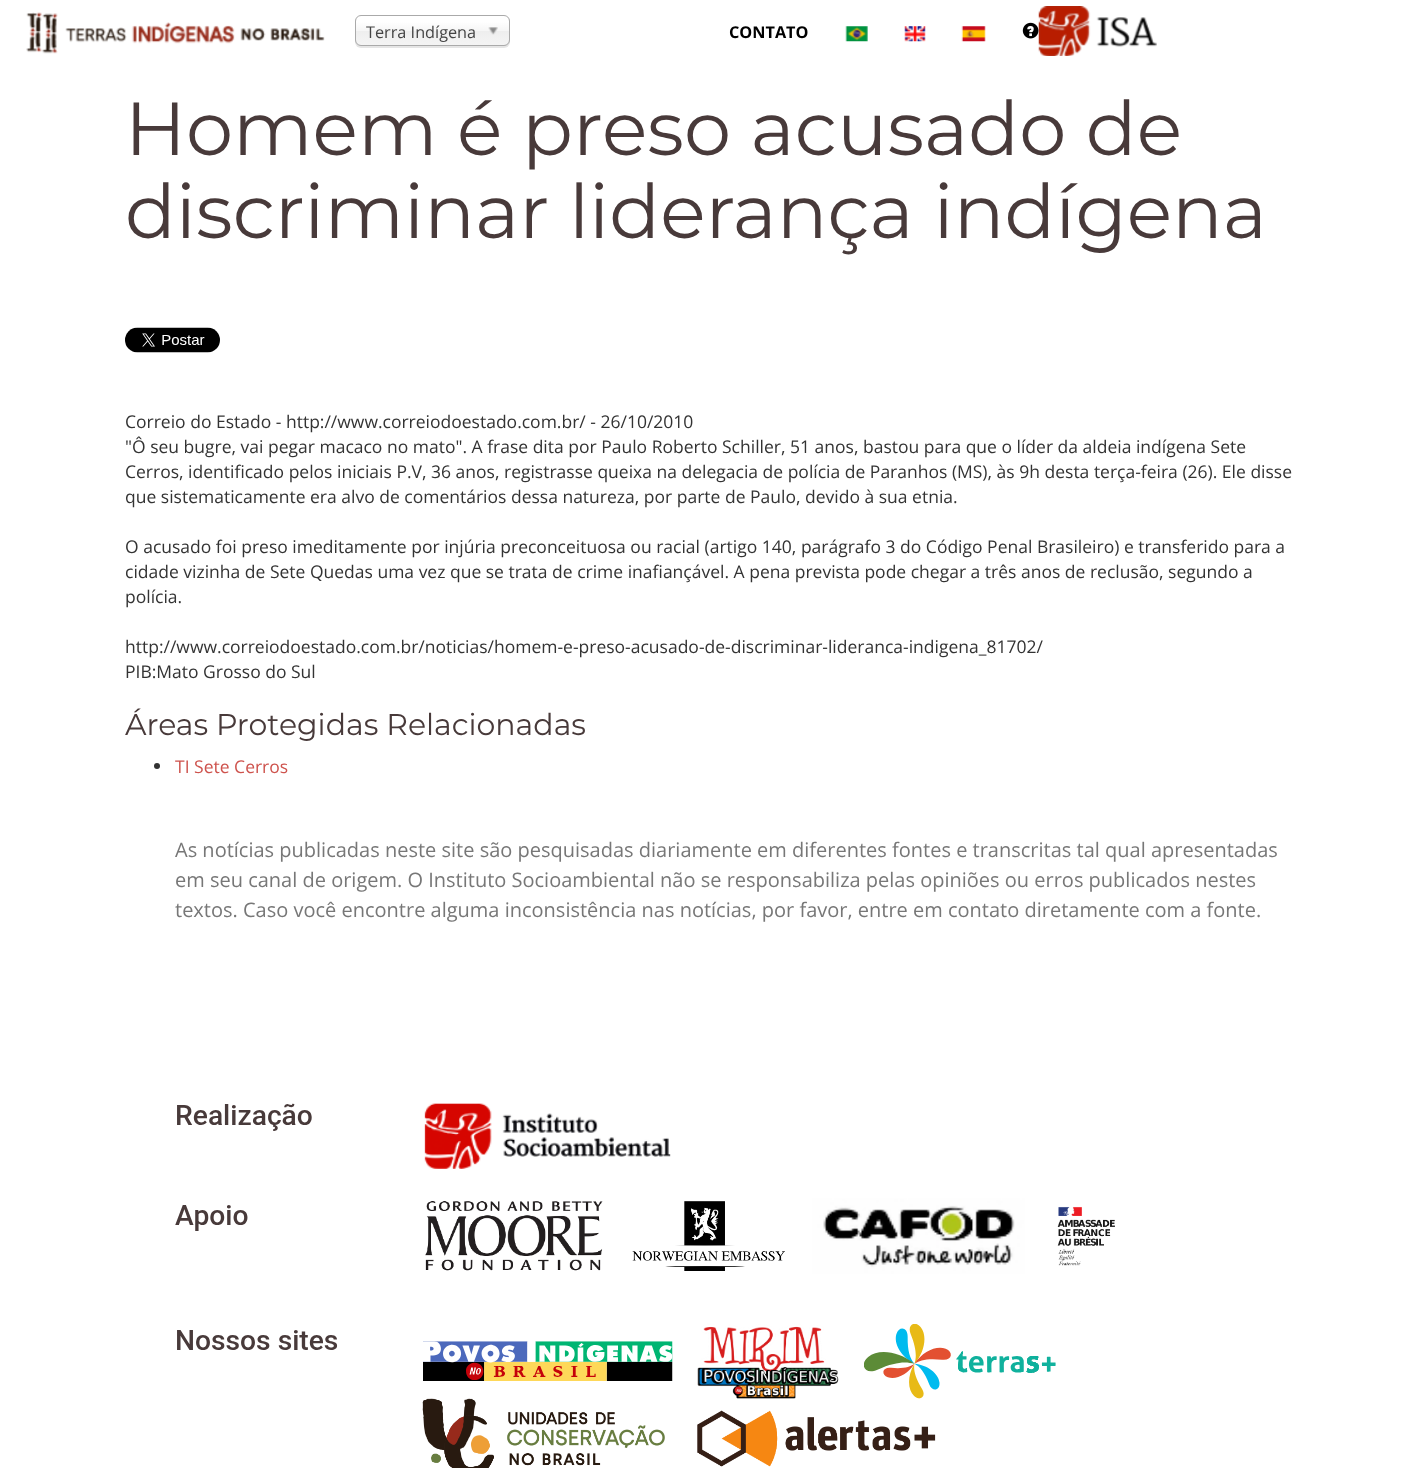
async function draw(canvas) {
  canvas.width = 1425;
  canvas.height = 1468;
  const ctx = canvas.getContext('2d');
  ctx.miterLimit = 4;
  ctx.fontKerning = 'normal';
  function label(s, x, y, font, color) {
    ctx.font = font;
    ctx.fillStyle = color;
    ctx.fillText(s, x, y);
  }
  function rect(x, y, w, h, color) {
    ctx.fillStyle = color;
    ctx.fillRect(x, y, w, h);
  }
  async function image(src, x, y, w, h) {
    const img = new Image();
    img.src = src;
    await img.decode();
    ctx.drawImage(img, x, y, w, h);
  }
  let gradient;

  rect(0, 0, 1425, 1468, '#fff');
  await image('assets/img1.png', 26, 12, 299, 42);
  ctx.fillStyle = '#0000001a';
  ctx.filter = 'blur(0.5px)';
  ctx.beginPath();
  ctx.roundRect(355, 16, 155, 32, 6);
  ctx.fill();
  ctx.filter = 'none';
  gradient = ctx.createLinearGradient(433, 16, 433, 45);
  gradient.addColorStop(0.2, '#fff');
  gradient.addColorStop(0.5, '#f6f6f6');
  gradient.addColorStop(0.52, '#eee');
  gradient.addColorStop(1, '#f4f4f4');
  ctx.fillStyle = gradient;
  ctx.beginPath();
  ctx.roundRect(356, 16, 153, 29, 5);
  ctx.fill();
  ctx.beginPath();
  ctx.roundRect(355.5, 15.5, 154, 30, 5.5);
  ctx.strokeStyle = '#aaa';
  ctx.stroke();
  label('Terra Indígena', 366, 38, '16.25px Open Sans', '#444');
  await image('assets/img2.png', 488, 27, 10, 8);
  label('CONTATO', 729, 38, 'bold 16.25px Open Sans', '#000');
  await image('assets/img3.png', 845, 26, 23, 16);
  await image('assets/img4.png', 904, 26, 22, 16);
  await image('assets/img5.png', 961, 26, 25, 16);
  await image('assets/img7.png', 1038, 6, 119, 50);
  await image('assets/img6.png', 1022, 22, 17, 17);
  label('Homem é preso acusado de', 125, 155, '100 75px Montserrat', '#483a3a');
  label('discriminar liderança indígena', 125, 238, '100 75px Montserrat', '#483a3a');
  await image('assets/img8.png', 125, 327, 95, 26);
  label('Correio do Estado - http://www.correiodoestado.com.br/ - 26/10/2010', 125, 428, '17.5px Open Sans', '#333');
  label('"Ô seu bugre, vai pegar macaco no mato". A frase dita por Paulo Roberto Schiller, 51 anos, bastou para que o líder da aldeia indígena Sete', 125, 453, '17.5px Open Sans', '#333');
  label('Cerros, identificado pelos iniciais P.V, 36 anos, registrasse queixa na delegacia de polícia de Paranhos (MS), às 9h desta terça-feira (26). Ele disse', 125, 478, '17.5px Open Sans', '#333');
  label('que sistematicamente era alvo de comentários dessa natureza, por parte de Paulo, devido à sua etnia.', 125, 503, '17.5px Open Sans', '#333');
  label('O acusado foi preso imeditamente por injúria preconceituosa ou racial (artigo 140, parágrafo 3 do Código Penal Brasileiro) e transferido para a', 125, 553, '17.5px Open Sans', '#333');
  label('cidade vizinha de Sete Quedas uma vez que se trata de crime inafiançável. A pena prevista pode chegar a três anos de reclusão, segundo a', 125, 578, '17.5px Open Sans', '#333');
  label('polícia.', 125, 603, '17.5px Open Sans', '#333');
  label('http://www.correiodoestado.com.br/noticias/homem-e-preso-acusado-de-discriminar-lideranca-indigena_81702/', 125, 653, '17.5px Open Sans', '#333');
  label('PIB:Mato Grosso do Sul', 125, 678, '17.5px Open Sans', '#333');
  label('Áreas Protegidas Relacionadas', 125, 735, '100 30px Montserrat', '#483a3a');
  ctx.fillStyle = '#333';
  ctx.beginPath();
  ctx.arc(157, 766, 3, 0, 2 * Math.PI);
  ctx.fill();
  label('TI Sete Cerros', 175, 773, '17.5px Open Sans', '#ce534d');
  label('As notícias publicadas neste site são pesquisadas diariamente em diferentes fontes e transcritas tal qual apresentadas', 175, 857, '20px Open Sans', '#777');
  label('em seu canal de origem. O Instituto Socioambiental não se responsabiliza pelas opiniões ou erros publicados nestes', 175, 887, '20px Open Sans', '#777');
  label('textos. Caso você encontre alguma inconsistência nas notícias, por favor, entre em contato diretamente com a fonte.', 175, 917, '20px Open Sans', '#777');
  await image('assets/img9.png', 175, 1103, 940, 365);
}

draw(document.querySelector('canvas'));
